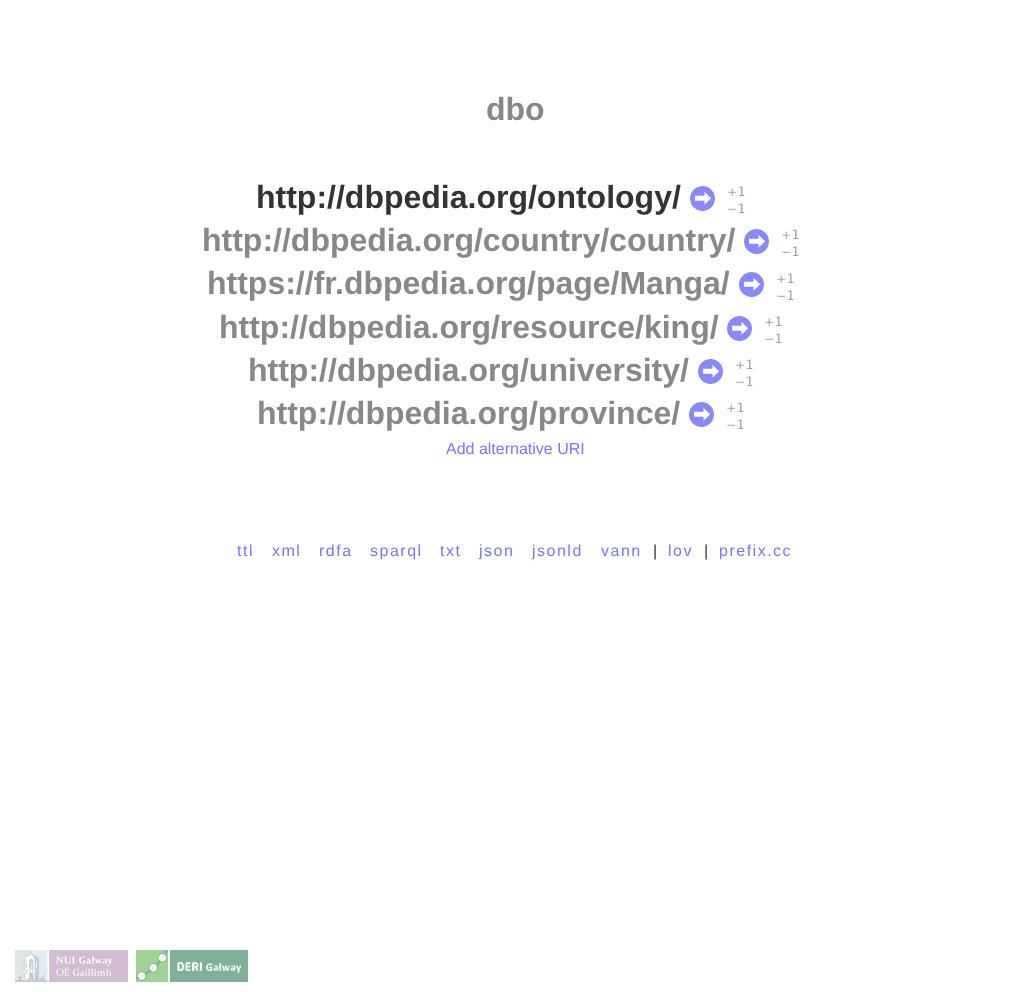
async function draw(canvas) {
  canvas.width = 1030;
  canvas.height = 992;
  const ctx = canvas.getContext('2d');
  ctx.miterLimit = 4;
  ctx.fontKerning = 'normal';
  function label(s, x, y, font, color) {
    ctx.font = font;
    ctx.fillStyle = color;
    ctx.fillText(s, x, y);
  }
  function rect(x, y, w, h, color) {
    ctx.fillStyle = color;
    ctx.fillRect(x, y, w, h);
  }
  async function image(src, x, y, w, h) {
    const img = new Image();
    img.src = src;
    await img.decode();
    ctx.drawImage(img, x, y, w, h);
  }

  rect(0, 0, 1030, 992, '#fff');
  label('dbo', 486, 120, 'bold 32px Liberation Sans', '#888');
  label('http://dbpedia.org/ontology/', 256, 208, 'bold 32px Liberation Sans', '#333');
  await image('assets/img1.png', 690, 186, 25, 25);
  await image('assets/img2.png', 728, 186, 17, 10);
  await image('assets/img3.png', 728, 203, 17, 10);
  label('http://dbpedia.org/country/country/', 202, 251, 'bold 32px Liberation Sans', '#888');
  await image('assets/img1.png', 744, 229, 25, 25);
  await image('assets/img2.png', 782, 229, 17, 10);
  await image('assets/img3.png', 782, 246, 17, 10);
  label('https://fr.dbpedia.org/page/Manga/', 207, 294, 'bold 32px Liberation Sans', '#888');
  await image('assets/img1.png', 739, 272, 25, 25);
  await image('assets/img2.png', 777, 273, 17, 10);
  await image('assets/img3.png', 777, 290, 17, 10);
  label('http://dbpedia.org/resource/king/', 219, 338, 'bold 32px Liberation Sans', '#888');
  await image('assets/img1.png', 727, 316, 25, 25);
  await image('assets/img2.png', 765, 316, 17, 10);
  await image('assets/img3.png', 765, 333, 17, 10);
  label('http://dbpedia.org/university/', 248, 381, 'bold 32px Liberation Sans', '#888');
  await image('assets/img1.png', 698, 359, 25, 25);
  await image('assets/img2.png', 736, 359, 17, 10);
  await image('assets/img3.png', 736, 376, 17, 10);
  label('http://dbpedia.org/province/', 257, 424, 'bold 32px Liberation Sans', '#888');
  await image('assets/img1.png', 689, 402, 25, 25);
  await image('assets/img2.png', 727, 402, 17, 10);
  await image('assets/img3.png', 727, 419, 17, 10);
  label('Add alternative URI', 446, 454, '16px Liberation Sans', '#77f');
  ctx.letterSpacing = '1.5px';
  label('ttl', 237, 556, '16px Liberation Sans', '#77f');
  label('xml', 272, 556, '16px Liberation Sans', '#77f');
  label('rdfa', 319, 556, '16px Liberation Sans', '#77f');
  label('sparql', 370, 556, '16px Liberation Sans', '#77f');
  label('txt', 440, 556, '16px Liberation Sans', '#77f');
  label('json', 479, 556, '16px Liberation Sans', '#77f');
  label('jsonld', 532, 556, '16px Liberation Sans', '#77f');
  label('vann', 601, 556, '16px Liberation Sans', '#77f');
  ctx.letterSpacing = '0px';
  label('|', 653, 556, '16px Liberation Sans', '#333');
  ctx.letterSpacing = '1.5px';
  label('lov', 668, 556, '16px Liberation Sans', '#77f');
  ctx.letterSpacing = '0px';
  label('|', 704, 556, '16px Liberation Sans', '#333');
  ctx.letterSpacing = '1.5px';
  label('prefix.cc', 719, 556, '16px Liberation Sans', '#77f');
  await image('assets/img4.png', 15, 950, 113, 32);
  await image('assets/img5.png', 136, 950, 112, 32);
}

draw(document.querySelector('canvas'));
